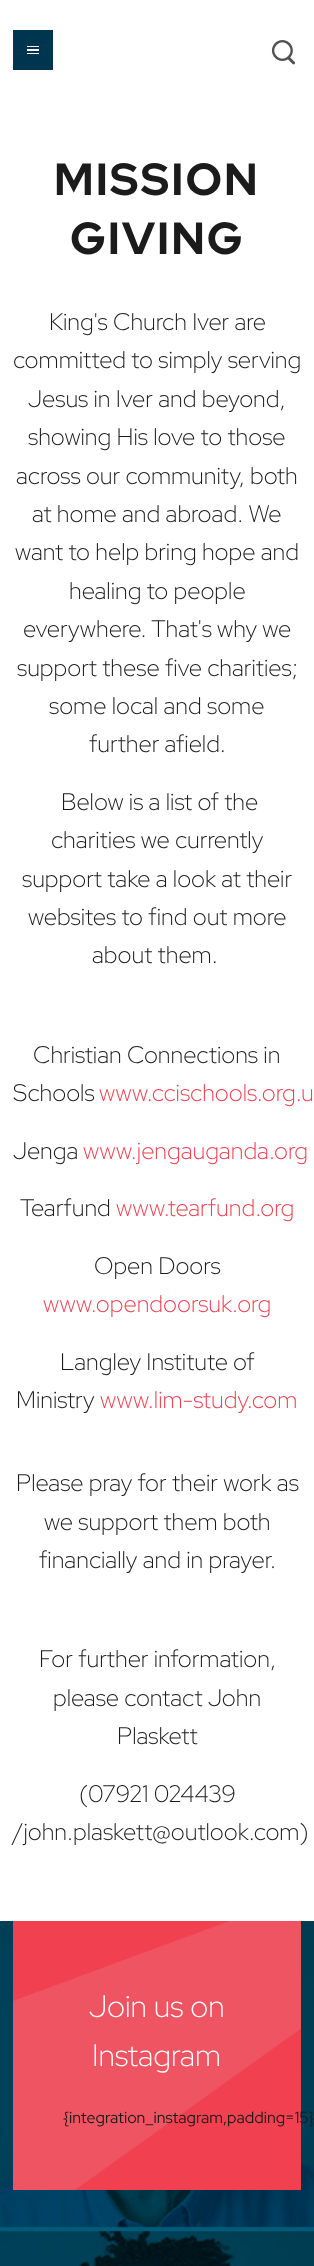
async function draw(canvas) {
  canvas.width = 314;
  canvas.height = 2266;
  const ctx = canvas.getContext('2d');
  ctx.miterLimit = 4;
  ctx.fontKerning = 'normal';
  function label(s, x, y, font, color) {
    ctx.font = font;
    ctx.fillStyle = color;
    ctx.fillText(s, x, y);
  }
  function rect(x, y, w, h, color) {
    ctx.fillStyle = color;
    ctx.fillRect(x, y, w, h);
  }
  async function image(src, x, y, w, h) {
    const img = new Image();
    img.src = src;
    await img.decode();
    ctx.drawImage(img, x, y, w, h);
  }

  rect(0, 0, 314, 2266, '#fff');
  rect(13, 30, 40, 40, '#00354f');
  rect(27, 46, 12, 1, '#fff');
  rect(27, 49, 12, 2, '#fff');
  rect(27, 53, 12, 1, '#fff');
  await image('assets/img1.png', 271, 40, 24, 25);
  ctx.letterSpacing = '2px';
  label('MISSION', 54, 195, 'bold 45px Red Hat Display', '#1b1b1b');
  label('GIVING', 70, 254, 'bold 45px Red Hat Display', '#1b1b1b');
  ctx.letterSpacing = '0px';
  label('King\'s Church Iver are', 49, 330, '300 24px Red Hat Display', '#1b1b1b');
  label('committed to simply serving', 13, 368, '300 24px Red Hat Display', '#1b1b1b');
  label('Jesus in Iver and beyond,', 28, 407, '300 24px Red Hat Display', '#1b1b1b');
  label('showing His love to those', 28, 445, '300 24px Red Hat Display', '#1b1b1b');
  label('across our community, both', 16, 484, '300 24px Red Hat Display', '#1b1b1b');
  label('at home and abroad. We', 32, 522, '300 24px Red Hat Display', '#1b1b1b');
  label('want to help bring hope and', 15, 560, '300 24px Red Hat Display', '#1b1b1b');
  label('healing to people', 69, 599, '300 24px Red Hat Display', '#1b1b1b');
  label('everywhere. That\'s why we', 23, 637, '300 24px Red Hat Display', '#1b1b1b');
  label('support these five charities;', 17, 676, '300 24px Red Hat Display', '#1b1b1b');
  label('some local and some', 49, 714, '300 24px Red Hat Display', '#1b1b1b');
  label('further afield.', 89, 752, '300 24px Red Hat Display', '#1b1b1b');
  label('Below is a list of the', 61, 810, '300 24px Red Hat Display', '#1b1b1b');
  label('charities we currently', 51, 848, '300 24px Red Hat Display', '#1b1b1b');
  label('support take a look at their', 22, 887, '300 24px Red Hat Display', '#1b1b1b');
  label('websites to find out more', 28, 925, '300 24px Red Hat Display', '#1b1b1b');
  label('about them.', 92, 963, '300 24px Red Hat Display', '#1b1b1b');
  label('Christian Connections in', 33, 1063, '300 24px Red Hat Display', '#1b1b1b');
  label('Schools', 13, 1101, '300 24px Red Hat Display', '#1b1b1b');
  label('www.ccischools.org.u', 99, 1101, '300 24px Red Hat Display', '#ef4050');
  label('Jenga', 13, 1159, '300 24px Red Hat Display', '#1b1b1b');
  label('www.jengauganda.org', 83, 1159, '300 24px Red Hat Display', '#ef4050');
  label('Tearfund', 20, 1216, '300 24px Red Hat Display', '#1b1b1b');
  label('www.tearfund.org', 116, 1216, '300 24px Red Hat Display', '#ef4050');
  label('Open Doors', 94, 1274, '300 24px Red Hat Display', '#1b1b1b');
  label('www.opendoorsuk.org', 43, 1312, '300 24px Red Hat Display', '#ef4050');
  label('Langley Institute of', 60, 1370, '300 24px Red Hat Display', '#1b1b1b');
  label('Ministry', 16, 1408, '300 24px Red Hat Display', '#1b1b1b');
  label('www.lim-study.com', 100, 1408, '300 24px Red Hat Display', '#ef4050');
  label('Please pray for their work as', 16, 1491, '300 24px Red Hat Display', '#1b1b1b');
  label('we support them both', 44, 1530, '300 24px Red Hat Display', '#1b1b1b');
  label('financially and in prayer.', 39, 1568, '300 24px Red Hat Display', '#1b1b1b');
  label('For further information,', 39, 1667, '300 24px Red Hat Display', '#1b1b1b');
  label('please contact John', 53, 1706, '300 24px Red Hat Display', '#1b1b1b');
  label('Plaskett', 117, 1744, '300 24px Red Hat Display', '#1b1b1b');
  label('(07921 024439', 79, 1802, '300 24px Red Hat Display', '#1b1b1b');
  label('/john.plaskett@outlook.com)', 13, 1840, '300 24px Red Hat Display', '#1b1b1b');
  await image('assets/img2.png', 0, 1921, 314, 345);
  await image('assets/img3.png', 13, 1921, 288, 269);
  label('Join us on', 89, 2017, '300 31px Red Hat Display', '#fff');
  label('Instagram', 92, 2066, '300 31px Red Hat Display', '#fff');
  label('{integration_instagram,padding=15}', 63, 2123, '16px Red Hat Display', '#1b1b1b');
}

draw(document.querySelector('canvas'));
